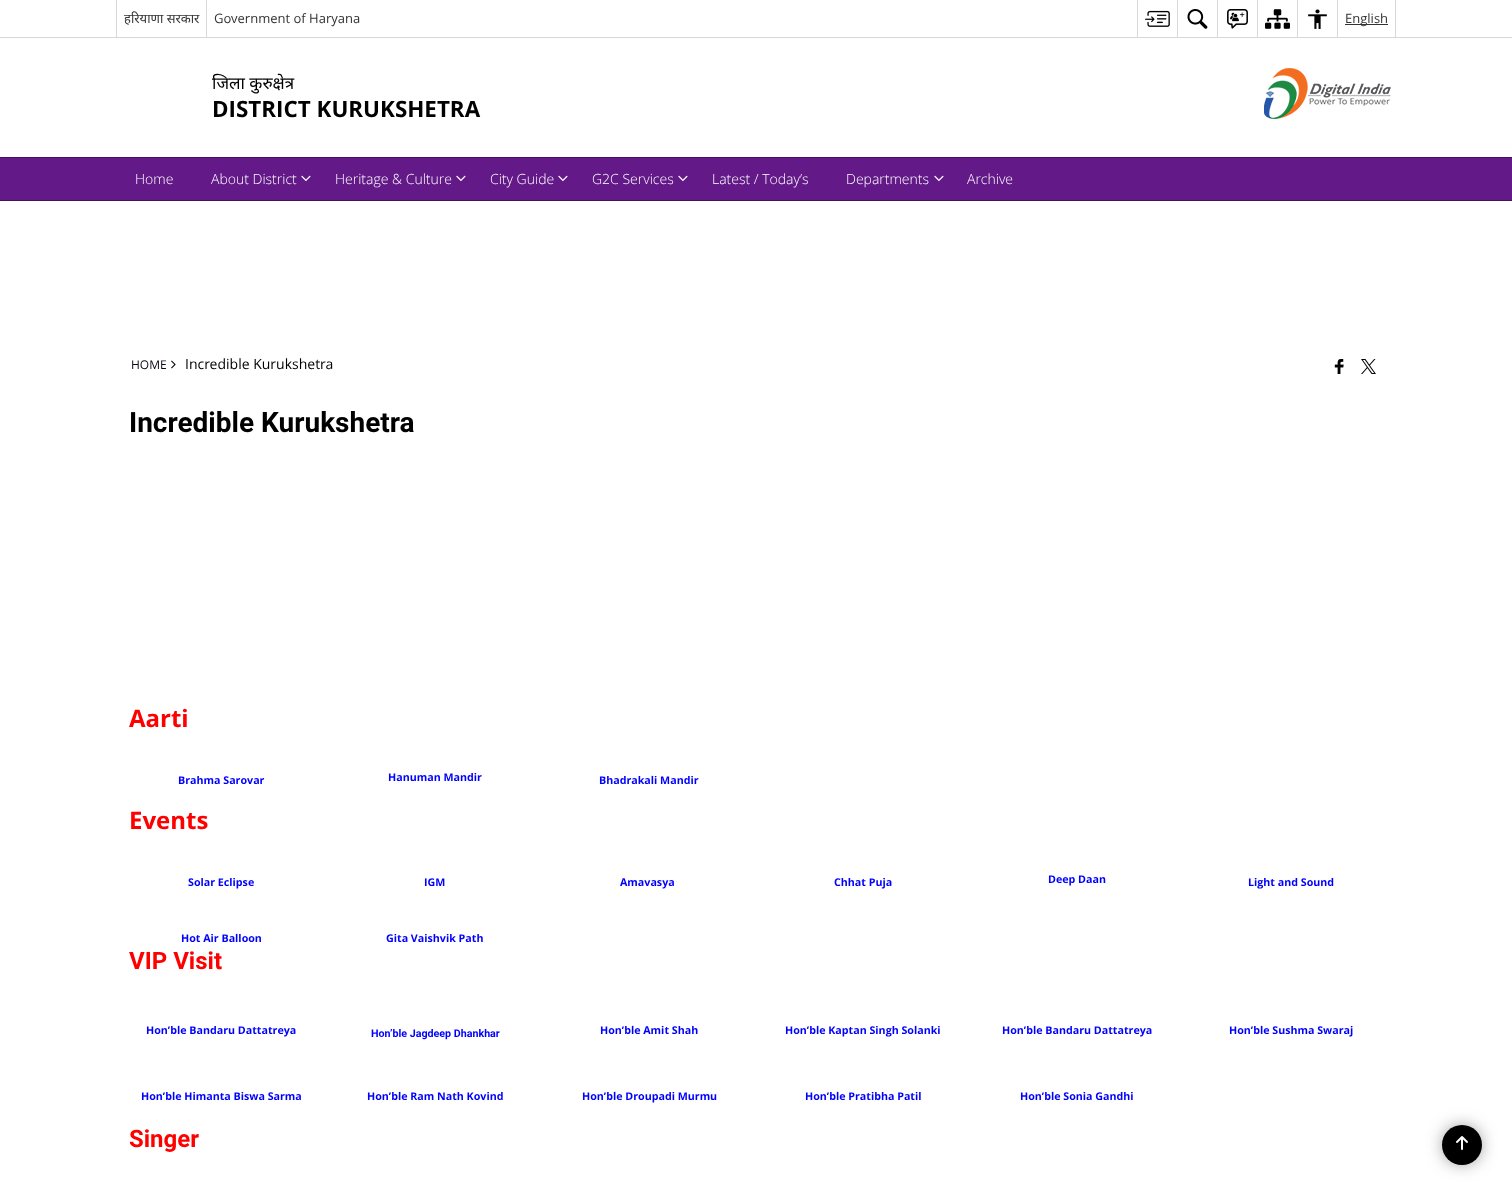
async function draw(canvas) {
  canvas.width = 1512;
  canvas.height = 1195;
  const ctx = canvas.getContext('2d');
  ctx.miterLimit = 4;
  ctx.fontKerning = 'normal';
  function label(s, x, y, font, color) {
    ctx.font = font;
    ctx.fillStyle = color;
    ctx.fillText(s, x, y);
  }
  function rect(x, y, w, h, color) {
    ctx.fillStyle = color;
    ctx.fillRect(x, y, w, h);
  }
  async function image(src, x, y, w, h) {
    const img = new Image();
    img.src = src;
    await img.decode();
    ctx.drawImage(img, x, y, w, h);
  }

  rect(0, 0, 1512, 1195, '#fff');
  rect(0, 37, 1512, 1, '#d8d8d8');
  rect(116, 0, 1, 37, '#d8d8d8');
  label('हरियाणा सरकार', 124, 23, '13px Noto Sans', '#333');
  rect(206, 0, 1, 37, '#d8d8d8');
  label('Government of Haryana', 214, 23, '13px Open Sans', '#333');
  rect(1137, 0, 1, 37, '#d8d8d8');
  await image('assets/img1.png', 1145, 10, 25, 17);
  rect(1177, 0, 1, 37, '#d8d8d8');
  await image('assets/img2.png', 1187, 9, 21, 20);
  rect(1217, 0, 1, 37, '#d8d8d8');
  await image('assets/img3.png', 1227, 9, 21, 20);
  rect(1257, 0, 1, 37, '#d8d8d8');
  await image('assets/img4.png', 1265, 9, 25, 20);
  rect(1297, 0, 1, 37, '#d8d8d8');
  await image('assets/img5.png', 1308, 9, 19, 20);
  rect(1395, 0, 1, 37, '#d8d8d8');
  rect(1337, 0, 1, 37, '#d8d8d8');
  rect(1345, 24, 43, 1, '#333');
  label('English', 1345, 23, '13px Open Sans', '#333');
  label('जिला कुरुक्षेत्र', 212, 89, '17px Noto Sans', '#000');
  label('DISTRICT KURUKSHETRA', 212, 117, 'bold 22.4px Open Sans', '#000');
  await image('assets/img6.png', 1264, 68, 127, 51);
  rect(0, 158, 1512, 42, '#631988');
  rect(0, 157, 1512, 1, '#45125f');
  rect(0, 200, 1512, 1, '#45125f');
  label('Home', 135, 184, '300 14px Open Sans', '#fff');
  label('About District', 211, 184, '300 14px Open Sans', '#fff');
  await image('assets/img7.png', 301, 175, 10, 7);
  label('Heritage & Culture', 335, 184, '300 14px Open Sans', '#fff');
  await image('assets/img7.png', 456, 175, 10, 7);
  label('City Guide', 490, 184, '300 14px Open Sans', '#fff');
  await image('assets/img7.png', 558, 175, 10, 7);
  label('G2C Services', 592, 184, '300 14px Open Sans', '#fff');
  await image('assets/img7.png', 678, 175, 10, 7);
  label('Latest / Today’s', 712, 184, '300 14px Open Sans', '#fff');
  label('Departments', 846, 184, '300 14px Open Sans', '#fff');
  await image('assets/img7.png', 934, 175, 10, 7);
  label('Archive', 967, 184, '300 14px Open Sans', '#fff');
  label('HOME', 131, 369, '12px Open Sans', '#0a0918');
  await image('assets/img8.png', 171, 360, 5, 9);
  label('Incredible Kurukshetra', 185, 369, '14px Open Sans', '#000');
  await image('assets/img9.png', 1334, 359, 10, 15);
  await image('assets/img10.png', 1361, 359, 15, 15);
  label('Incredible Kurukshetra', 129, 432, 'bold 28px Roboto', '#000');
  label('Aarti', 129, 727, 'bold 24px Open Sans', '#f00');
  label('Brahma Sarovar', 178, 784, 'bold 10.7px Open Sans', '#00f');
  label('Hanuman Mandir', 388, 781, 'bold 10.7px Open Sans', '#00f');
  label('Bhadrakali Mandir', 599, 784, 'bold 10.7px Open Sans', '#00f');
  label('Events', 129, 829, 'bold 24px Open Sans', '#f00');
  label('Solar Eclipse', 188, 886, 'bold 10.7px Open Sans', '#00f');
  label('IGM', 424, 886, 'bold 10.7px Open Sans', '#00f');
  label('Amavasya', 620, 886, 'bold 10.7px Open Sans', '#00f');
  label('Chhat Puja', 834, 886, 'bold 10.7px Open Sans', '#00f');
  label('Deep Daan', 1048, 883, 'bold 10.7px Open Sans', '#00f');
  label('Light and Sound', 1248, 886, 'bold 10.7px Open Sans', '#00f');
  label('Hot Air Balloon', 181, 942, 'bold 10.7px Open Sans', '#00f');
  label('Gita Vaishvik Path', 386, 942, 'bold 10.7px Open Sans', '#00f');
  label('VIP Visit', 129, 969, 'bold 24px Roboto', '#f00');
  label('Hon’ble Bandaru Dattatreya', 146, 1034, 'bold 10.7px Open Sans', '#00f');
  label('Hon’ble Jagdeep Dhankhar', 371, 1037, 'bold 10.7px Roboto', '#00f');
  label('Hon’ble Amit Shah', 600, 1034, 'bold 10.7px Open Sans', '#00f');
  label('Hon’ble Kaptan Singh Solanki', 785, 1034, 'bold 10.7px Open Sans', '#00f');
  label('Hon’ble Bandaru Dattatreya', 1002, 1034, 'bold 10.7px Open Sans', '#00f');
  label('Hon’ble Sushma Swaraj', 1229, 1034, 'bold 10.7px Open Sans', '#00f');
  label('Hon’ble Himanta Biswa Sarma', 141, 1100, 'bold 10.7px Open Sans', '#00f');
  label('Hon’ble Ram Nath Kovind', 367, 1100, 'bold 10.7px Open Sans', '#00f');
  label('Hon’ble Droupadi Murmu', 582, 1100, 'bold 10.7px Open Sans', '#00f');
  label('Hon’ble Pratibha Patil', 805, 1100, 'bold 10.7px Open Sans', '#00f');
  label('Hon’ble Sonia Gandhi', 1020, 1100, 'bold 10.7px Open Sans', '#00f');
  label('Singer', 129, 1147, 'bold 24px Roboto', '#f00');
  ctx.fillStyle = '#3c3c3c';
  ctx.filter = 'blur(9.5px)';
  ctx.beginPath();
  ctx.roundRect(1447, 1130, 30, 30, 15);
  ctx.fill();
  ctx.filter = 'none';
  ctx.fillStyle = '#000';
  ctx.beginPath();
  ctx.arc(1462, 1145, 20, 0, 2 * Math.PI);
  ctx.fill();
  await image('assets/img11.png', 1456, 1136, 12, 14);
}

draw(document.querySelector('canvas'));
